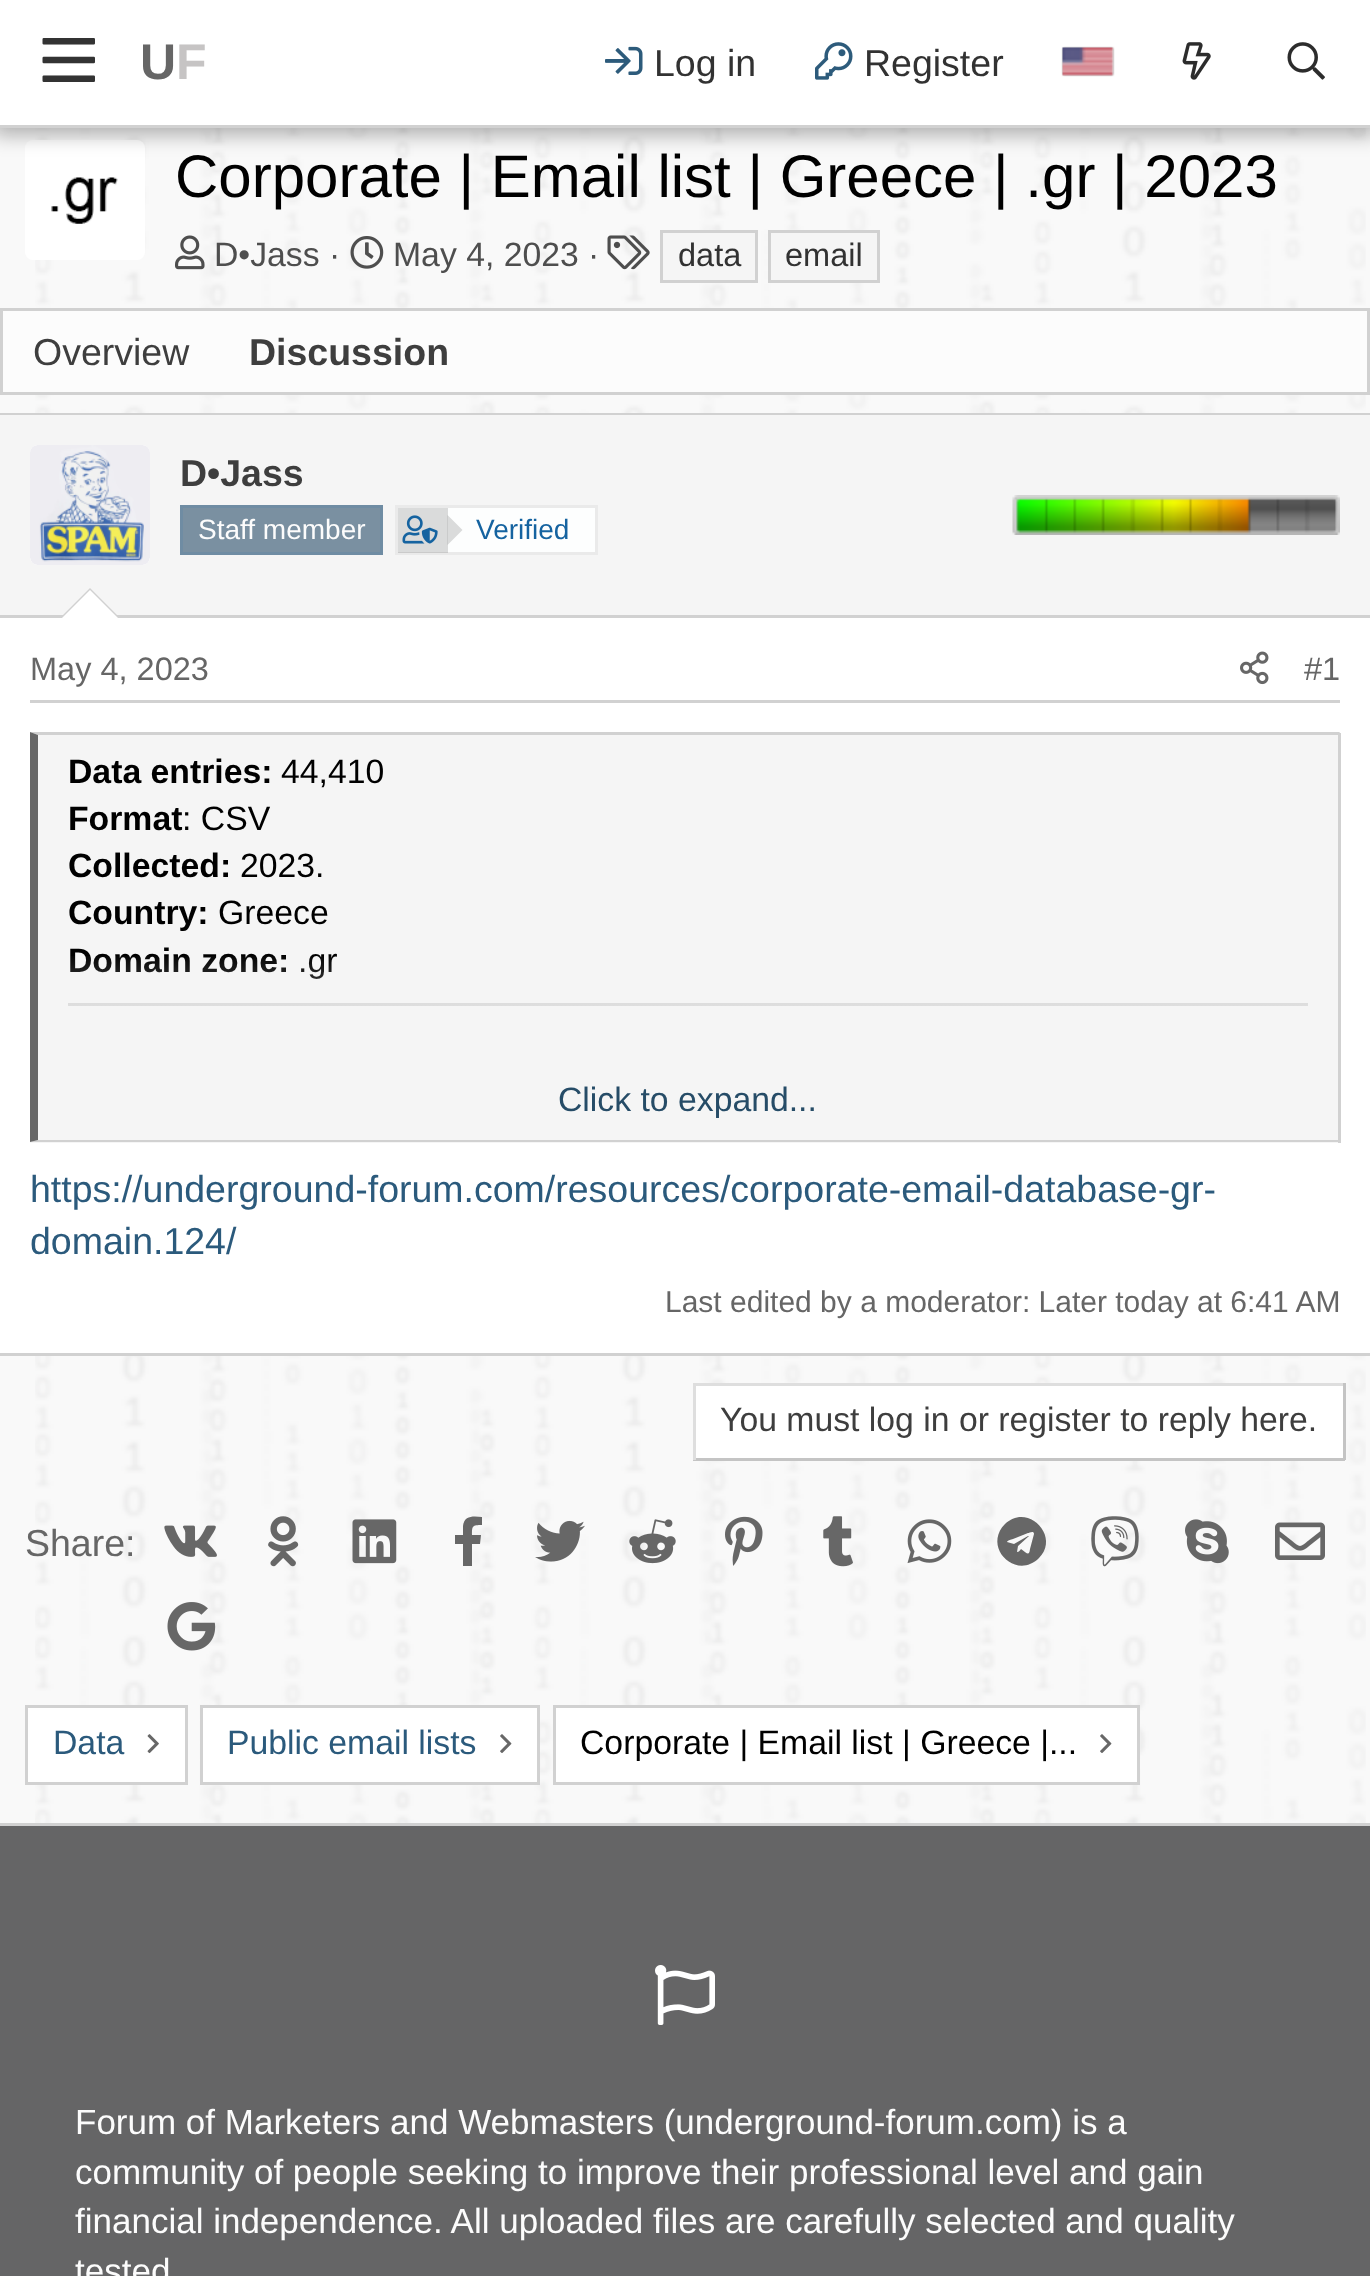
async function draw(canvas) {
  canvas.width = 1370;
  canvas.height = 2276;
  const ctx = canvas.getContext('2d');
  ctx.miterLimit = 4;
  ctx.fontKerning = 'normal';
  function label(s, x, y, font, color) {
    ctx.font = font;
    ctx.fillStyle = color;
    ctx.fillText(s, x, y);
  }
  function rect(x, y, w, h, color) {
    ctx.fillStyle = color;
    ctx.fillRect(x, y, w, h);
  }
  function roundedRect(x, y, w, h, r, color) {
    ctx.fillStyle = color;
    ctx.beginPath();
    ctx.roundRect(x, y, w, h, r);
    ctx.fill();
  }
  async function image(src, x, y, w, h) {
    const img = new Image();
    img.src = src;
    await img.decode();
    ctx.drawImage(img, x, y, w, h);
  }
  let gradient, path;

  rect(0, 0, 1370, 2276, '#f9f9f9');
  await image('assets/img1.png', 35, 128, 1331, 1695);
  roundedRect(25, 140, 120, 120, 8, '#fff');
  ctx.fillStyle = '#0000004d';
  ctx.filter = 'blur(10px)';
  ctx.beginPath();
  ctx.rect(-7, -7, 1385, 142);
  ctx.fill();
  ctx.filter = 'none';
  rect(0, 0, 1370, 125, '#fff');
  rect(0, 125, 1370, 3, '#d1d1d1');
  await image('assets/img2.png', 42, 38, 53, 44);
  label('U', 140, 79, 'bold 50px Liberation Sans', '#666');
  label('F', 176, 79, 'bold 50px Liberation Sans', '#c6c4c4');
  await image('assets/img3.png', 605, 46, 38, 29);
  label('Log in', 654, 76, '37.5px Liberation Sans', '#323232');
  await image('assets/img4.png', 815, 42, 38, 38);
  label('Register', 864, 76, '37.5px Liberation Sans', '#323232');
  ctx.fillStyle = '#888';
  ctx.filter = 'blur(1px)';
  ctx.beginPath();
  ctx.rect(1063, 48, 50, 27);
  ctx.fill();
  ctx.filter = 'none';
  rect(1063, 48, 50, 27, '#dbdbdb');
  await image('assets/img5.png', 1062, 47, 52, 29);
  await image('assets/img6.png', 1182, 42, 29, 38);
  await image('assets/img7.png', 1287, 42, 38, 38);
  await image('assets/img8.png', 51, 177, 67, 47);
  label('Corporate | Email list | Greece | .gr | 2023', 175, 197, '60px Liberation Sans', '#000');
  await image('assets/img9.png', 175, 235, 30, 35);
  label('D•Jass ·', 214, 266, '33.75px Liberation Sans', '#4e4e4e');
  await image('assets/img10.png', 350, 236, 34, 33);
  label('May 4, 2023 ·', 393, 266, '33.75px Liberation Sans', '#4e4e4e');
  await image('assets/img11.png', 607, 235, 43, 35);
  ctx.fillStyle = '#f5f5f5';
  ctx.beginPath();
  ctx.rect(661.5, 231.5, 95, 50);
  ctx.fill();
  ctx.strokeStyle = '#d1d1d1';
  ctx.lineWidth = 3;
  ctx.stroke();
  label('data', 678, 266, '32.5px Liberation Sans', '#323232');
  ctx.fillStyle = '#f5f5f5';
  ctx.beginPath();
  ctx.rect(769.5, 231.5, 109, 50);
  ctx.fill();
  ctx.stroke();
  label('email', 785, 266, '32.5px Liberation Sans', '#323232');
  ctx.fillStyle = '#fcfcfc';
  ctx.beginPath();
  ctx.rect(1.5, 309.5, 1367, 84);
  ctx.fill();
  ctx.stroke();
  label('Overview', 33, 365, '37.5px Liberation Sans', '#3e3e3e');
  label('Discussion', 249, 365, 'bold 37.5px Liberation Sans', '#3e3e3e');
  rect(0, 618, 1370, 735, '#fff');
  rect(0, 413, 1370, 2, '#d1d1d1');
  rect(0, 1353, 1370, 3, '#d1d1d1');
  rect(0, 415, 1370, 200, '#f5f5f5');
  rect(0, 615, 1370, 3, '#d1d1d1');
  roundedRect(30, 445, 120, 120, 8, '#fff');
  await image('assets/img12.png', 30, 445, 120, 120);
  label('D•Jass', 180, 486, 'bold 37.5px Liberation Sans', '#3e3e3e');
  ctx.fillStyle = '#7a90a1';
  ctx.beginPath();
  ctx.rect(181.5, 506.5, 200, 47);
  ctx.fill();
  ctx.strokeStyle = '#6f8ca3';
  ctx.stroke();
  label('Staff member', 198, 539, '28px Liberation Sans', '#fcfcfc');
  ctx.fillStyle = '#fdfefe';
  ctx.beginPath();
  ctx.rect(396.5, 506.5, 200, 47);
  ctx.fill();
  ctx.strokeStyle = '#eaeaea';
  ctx.stroke();
  rect(398, 508, 50, 45, '#14141426');
  await image('assets/img13.png', 402, 515, 36, 29);
  path = new Path2D('M447.5 545V515L462.5 530Z');
  ctx.fill(path);
  label('Verified', 476, 539, '28px Liberation Sans', '#1563a0');
  await image('assets/img14.png', 1012, 495, 328, 40);
  ctx.fillStyle = '#d1d1d1';
  path = new Path2D('M120 618H60L90 588Z');
  ctx.fill(path);
  ctx.fillStyle = '#fff';
  path = new Path2D('M118 618H62L90 590Z');
  ctx.fill(path);
  rect(30, 700, 1310, 3, '#d1d1d1');
  label('May 4, 2023', 30, 680, '32.5px Liberation Sans', '#666');
  await image('assets/img15.png', 1240, 651, 29, 34);
  label('#1', 1304, 680, '32.5px Liberation Sans', '#666');
  rect(30, 733, 1308, 410, '#f5f5f5');
  ctx.fillStyle = '#d1d1d1';
  path = new Path2D('M30 732H1340L1338 735H38Z');
  ctx.fill(path);
  rect(1338, 733, 3, 410, '#d1d1d1');
  path = new Path2D('M1340 1142H30L38 1140H1338Z');
  ctx.fill(path);
  ctx.fillStyle = '#5d5d5df0';
  path = new Path2D('M30 1142V732L38 735V1140Z');
  ctx.fill(path);
  label('Data entries:', 68, 783, 'bold 33.75px Liberation Sans', '#000');
  label('44,410', 281, 783, '33.75px Liberation Sans', '#000');
  label('Format', 68, 830, 'bold 33.75px Liberation Sans', '#000');
  label(': CSV', 182, 830, '33.75px Liberation Sans', '#000');
  label('Collected:', 68, 877, 'bold 33.75px Liberation Sans', '#000');
  label('2023.', 240, 877, '33.75px Liberation Sans', '#000');
  label('Country:', 68, 924, 'bold 33.75px Liberation Sans', '#000');
  label('Greece', 218, 924, '33.75px Liberation Sans', '#000');
  label('Domain zone:', 68, 972, 'bold 33.75px Liberation Sans', '#000');
  label('.gr', 298, 972, '33.75px Liberation Sans', '#000');
  rect(68, 1003, 1240, 3, '#d1d1d1');
  gradient = ctx.createLinearGradient(688, 953, 688, 1140);
  gradient.addColorStop(0, '#f5f5f500');
  gradient.addColorStop(0.8, '#f5f5f5');
  ctx.fillStyle = gradient;
  ctx.fillRect(68, 956, 1240, 50);
  label('Click to expand...', 558, 1111, '33.75px Liberation Sans', '#264c67');
  label('https://underground-forum.com/resources/corporate-email-database-gr-', 30, 1202, '37.5px Liberation Sans', '#2b5a7c');
  label('domain.124/', 30, 1254, '37.5px Liberation Sans', '#2b5a7c');
  label('Last edited by a moderator: Later today at 6:41 AM', 665, 1312, '30px Liberation Sans', '#666');
  rect(696, 1386, 647, 72, '#fff');
  rect(693, 1383, 652, 3, '#dedede');
  rect(1343, 1383, 3, 77, '#c4c4c4');
  rect(693, 1458, 652, 3, '#c4c4c4');
  rect(693, 1383, 3, 77, '#dedede');
  label('You must log in or register to reply here.', 720, 1431, '33.75px Liberation Sans', '#3e3e3e');
  label('Share:', 25, 1556, '37.5px Liberation Sans', '#666');
  await image('assets/img16.png', 164, 1525, 53, 32);
  await image('assets/img17.png', 268, 1516, 31, 51);
  await image('assets/img18.png', 352, 1519, 45, 45);
  ctx.fillStyle = '#5d5d5df0';
  path = new Path2D('M480 1544H472V1566H463V1544H455V1535H463V1526C464 1515 474 1516 482 1517V1525C472 1525 472 1526 472 1535H481Z');
  ctx.fill(path);
  await image('assets/img19.png', 535, 1520, 50, 42);
  await image('assets/img20.png', 629, 1519, 47, 45);
  await image('assets/img21.png', 725, 1516, 38, 50);
  await image('assets/img22.png', 823, 1516, 30, 51);
  await image('assets/img23.png', 907, 1519, 45, 45);
  path = new Path2D('M1005 1524C1027 1502 1061 1536 1039 1558C1016 1581 982 1547 1005 1524ZM1034 1534C1034 1530 1029 1533 1028 1533L1013 1539C1009 1540 1007 1541 1007 1542L1014 1544L1028 1536H1029L1018 1546L1017 1552C1019 1552 1020 1550 1021 1549C1027 1553 1029 1557 1030 1549Z');
  ctx.fill(path);
  await image('assets/img24.png', 1091, 1516, 48, 51);
  await image('assets/img25.png', 1185, 1519, 44, 45);
  await image('assets/img26.png', 1275, 1522, 50, 38);
  await image('assets/img27.png', 167, 1602, 49, 49);
  ctx.fillStyle = '#fff';
  ctx.beginPath();
  ctx.rect(26.5, 1706.5, 160, 77);
  ctx.fill();
  ctx.strokeStyle = '#d1d1d1';
  ctx.stroke();
  label('Data', 53, 1754, '33.75px Liberation Sans', '#2b5a7c');
  await image('assets/img28.png', 147, 1734, 12, 20);
  ctx.fillStyle = '#fff';
  ctx.beginPath();
  ctx.rect(201.5, 1706.5, 337, 77);
  ctx.fill();
  ctx.stroke();
  label('Public email lists', 227, 1754, '33.75px Liberation Sans', '#2b5a7c');
  await image('assets/img29.png', 500, 1734, 12, 19);
  ctx.fillStyle = '#fff';
  ctx.beginPath();
  ctx.rect(554.5, 1706.5, 584, 77);
  ctx.fill();
  ctx.stroke();
  label('Corporate | Email list | Greece |...', 580, 1754, '33.75px Liberation Sans', '#000');
  await image('assets/img29.png', 1100, 1734, 12, 19);
  rect(0, 1826, 1370, 450, '#656566');
  rect(0, 1823, 1370, 3, '#d1d1d1');
  await image('assets/img30.png', 655, 1965, 60, 60);
  label('Forum of Marketers and Webmasters (underground-forum.com) is a', 75, 2134, '35px Liberation Sans', '#fcfcfc');
  label('community of people seeking to improve their professional level and gain', 75, 2184, '35px Liberation Sans', '#fcfcfc');
  label('financial independence. All uploaded files are carefully selected and quality', 75, 2233, '35px Liberation Sans', '#fcfcfc');
  label('tested', 75, 2283, '35px Liberation Sans', '#fcfcfc');
}

draw(document.querySelector('canvas'));
